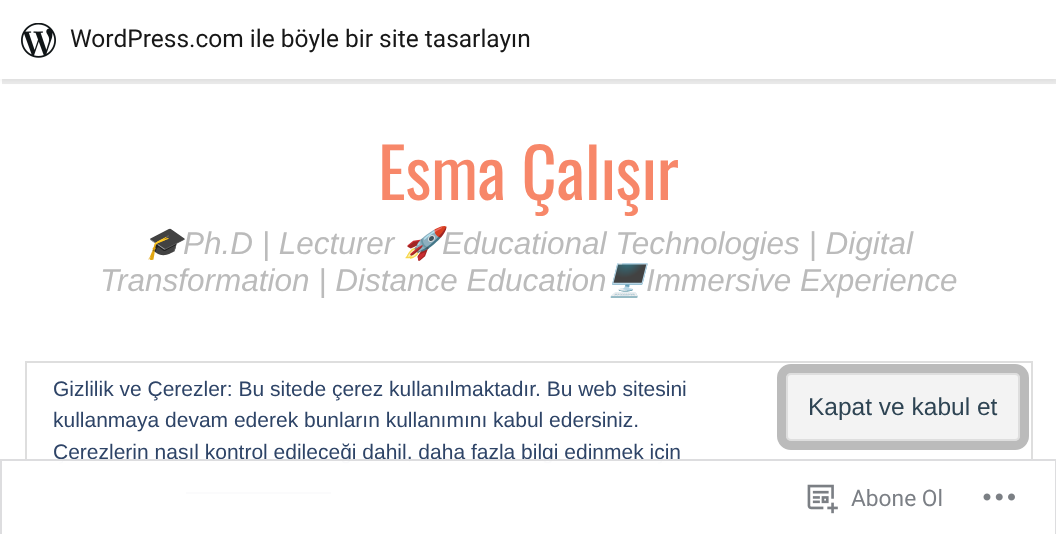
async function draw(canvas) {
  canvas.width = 1056;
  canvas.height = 534;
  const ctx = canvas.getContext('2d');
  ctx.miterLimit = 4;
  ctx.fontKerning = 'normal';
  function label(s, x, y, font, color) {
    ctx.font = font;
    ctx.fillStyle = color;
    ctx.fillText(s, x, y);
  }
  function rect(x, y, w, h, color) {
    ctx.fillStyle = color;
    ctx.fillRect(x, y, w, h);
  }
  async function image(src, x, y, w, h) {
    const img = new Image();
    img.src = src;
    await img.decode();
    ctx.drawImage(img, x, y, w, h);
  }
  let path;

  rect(0, 0, 1056, 534, '#fff');
  ctx.fillStyle = '#0000000d';
  ctx.filter = 'blur(2px)';
  ctx.beginPath();
  ctx.rect(0, 2, 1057, 79);
  ctx.fill();
  ctx.filter = 'none';
  ctx.fillStyle = '#00000014';
  path = new Path2D('M2 79V84H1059V5H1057V79Z');
  ctx.fill(path);
  rect(0, 0, 1056, 79, '#fff');
  await image('assets/img1.png', 21, 23, 35, 35);
  label('WordPress.com ile böyle bir site tasarlayın', 70, 47, '24.5px Roboto', '#171717');
  label('Esma Çalışır', 378, 200, '68.5px Oswald', '#f78769');
  label('🎓', 144, 254, 'italic 31.5px Noto Color Emoji', '#bbb');
  label('Ph.D | Lecturer', 183, 254, 'italic 31.5px Arimo', '#bbb');
  label('🚀', 403, 254, 'italic 31.5px Noto Color Emoji', '#bbb');
  label('Educational Technologies | Digital', 442, 254, 'italic 31.5px Arimo', '#bbb');
  label('Transformation | Distance Education', 100, 291, 'italic 31.5px Arimo', '#bbb');
  label('🖥️', 606, 291, 'italic 31.5px Noto Color Emoji', '#bbb');
  label('Immersive Experience', 646, 291, 'italic 31.5px Arimo', '#bbb');
  ctx.strokeStyle = '#dedede';
  ctx.lineWidth = 2;
  ctx.strokeRect(26, 362, 1006, 148);
  label('Gizlilik ve Çerezler: Bu sitede çerez kullanılmaktadır. Bu web sitesini', 53, 396, '21px Arimo', '#2e4467');
  label('kullanmaya devam ederek bunların kullanımını kabul edersiniz.', 53, 427, '21px Arimo', '#2e4467');
  ctx.fillStyle = '#f3f3f3';
  ctx.beginPath();
  ctx.roundRect(787, 374, 232, 66, 4);
  ctx.fill();
  ctx.stroke();
  ctx.beginPath();
  ctx.roundRect(781.5, 368.5, 243, 77, 9.5);
  ctx.strokeStyle = '#bbb';
  ctx.lineWidth = 9;
  ctx.stroke();
  label('Kapat ve kabul et', 808, 415, '24.5px Arimo', '#2e4453');
  label('Çerezlerin nasıl kontrol edileceği dahil, daha fazla bilgi edinmek için', 53, 459, '21px Arimo', '#2e4467');
  rect(186, 492, 145, 2, '#2e4467');
  rect(25, 459, 1008, 52, '#fffffffa');
  ctx.strokeStyle = '#dcdcdefa';
  ctx.lineWidth = 2;
  ctx.strokeRect(1, 460, 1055, 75);
  await image('assets/img2.png', 807, 484, 31, 30);
  label('Abone Ol', 851, 506, '22.75px Roboto', '#7b7f85');
  await image('assets/img3.png', 983, 493, 32, 8);
}

draw(document.querySelector('canvas'));
